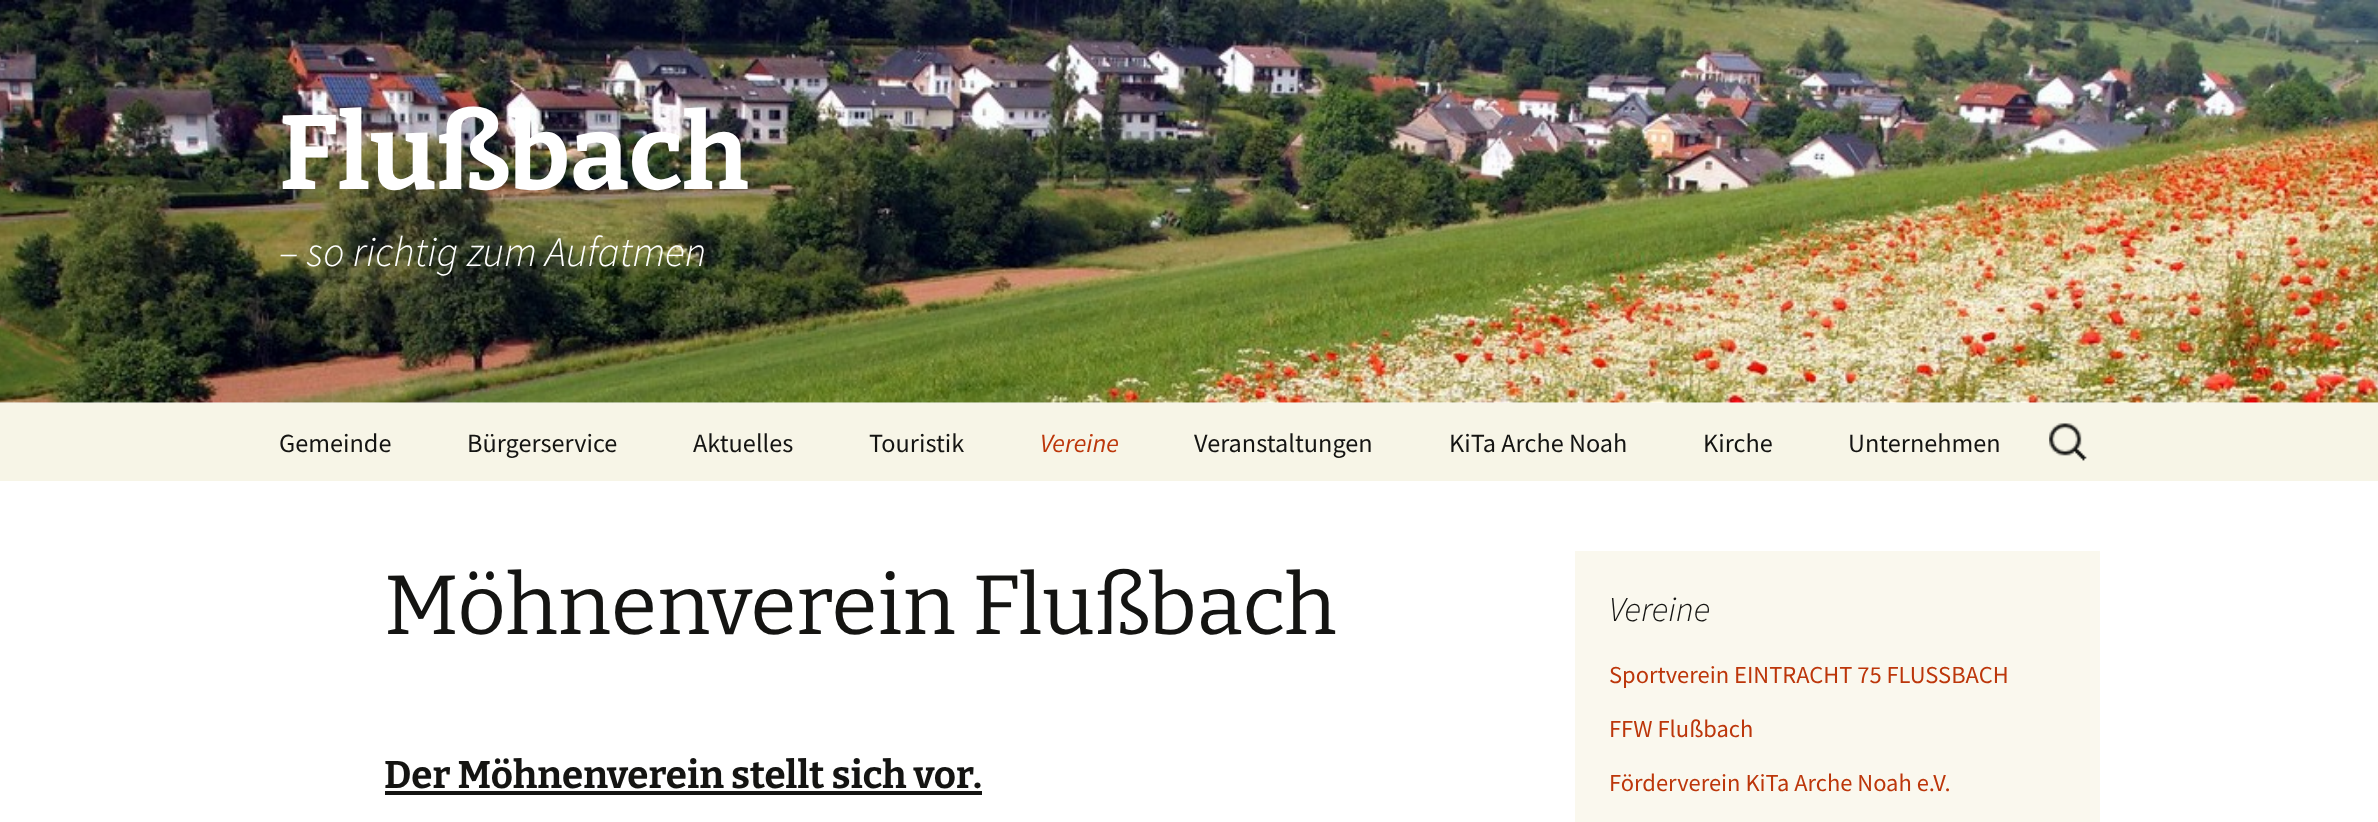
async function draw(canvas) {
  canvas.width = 2378;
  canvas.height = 822;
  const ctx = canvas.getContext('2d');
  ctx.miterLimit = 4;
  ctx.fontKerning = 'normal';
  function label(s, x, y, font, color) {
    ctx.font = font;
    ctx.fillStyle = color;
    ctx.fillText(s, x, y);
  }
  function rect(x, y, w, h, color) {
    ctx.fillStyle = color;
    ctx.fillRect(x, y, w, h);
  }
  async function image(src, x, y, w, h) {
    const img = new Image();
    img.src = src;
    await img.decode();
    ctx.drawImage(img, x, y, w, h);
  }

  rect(0, 0, 2378, 822, '#fff');
  await image('assets/img1.png', 0, 0, 2378, 403);
  label('Flußbach', 279, 189, '100 105px Bitter', '#fff');
  label('– so richtig zum Aufatmen', 279, 266, 'italic 300 42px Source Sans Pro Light', '#fff');
  rect(0, 403, 2378, 78, '#f7f5e7');
  label('Gemeinde', 279, 452, '26.25px Source Sans Pro', '#141412');
  label('Bürgerservice', 467, 452, '26.25px Source Sans Pro', '#141412');
  label('Aktuelles', 693, 452, '26.25px Source Sans Pro', '#141412');
  label('Touristik', 869, 452, '26.25px Source Sans Pro', '#141412');
  label('Vereine', 1040, 452, 'italic 26.25px Source Sans Pro', '#bc360a');
  label('Veranstaltungen', 1194, 452, '26.25px Source Sans Pro', '#141412');
  label('KiTa Arche Noah', 1449, 452, '26.25px Source Sans Pro', '#141412');
  label('Kirche', 1703, 452, '26.25px Source Sans Pro', '#141412');
  label('Unternehmen', 1848, 452, '26.25px Source Sans Pro', '#141412');
  await image('assets/img2.png', 2049, 423, 38, 38);
  label('Möhnenverein Flußbach', 384, 634, '100 84px "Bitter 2"', '#141412');
  label('Der Möhnenverein stellt sich vor.', 384, 788, '100 38.5px Bitter', '#141412');
  rect(385, 791, 597, 4, '#141412');
  rect(1575, 551, 525, 271, '#faf8ee');
  label('Vereine', 1609, 621, 'italic 300 35px Source Sans Pro Light', '#141412');
  label('Sportverein EINTRACHT 75 FLUSSBACH', 1609, 683, '24.5px Source Sans Pro', '#bc360a');
  label('FFW Flußbach', 1609, 737, '24.5px Source Sans Pro', '#bc360a');
  label('Förderverein KiTa Arche Noah e.V.', 1609, 791, '24.5px Source Sans Pro', '#bc360a');
}

draw(document.querySelector('canvas'));
